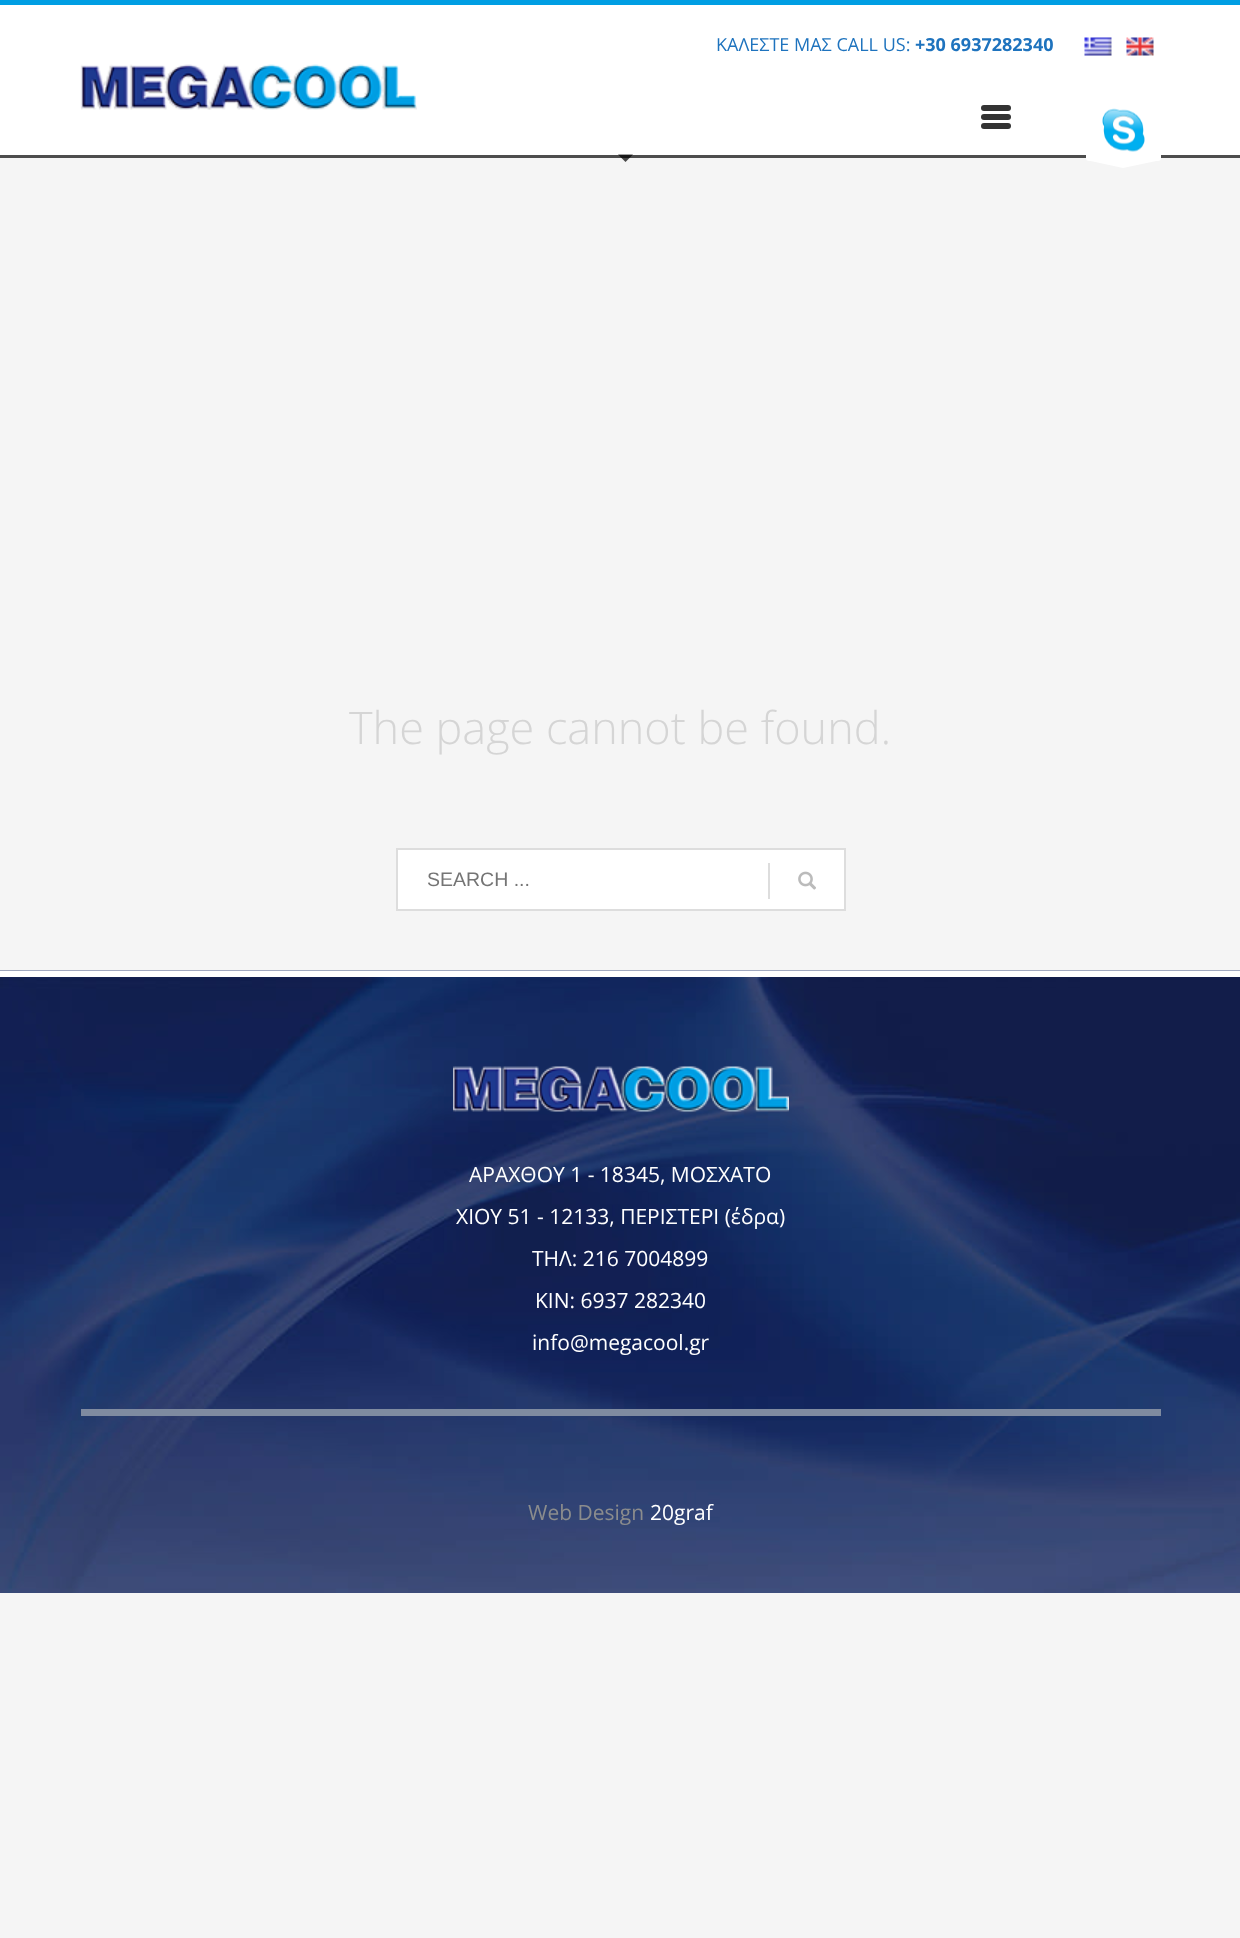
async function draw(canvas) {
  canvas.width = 1240;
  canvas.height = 1938;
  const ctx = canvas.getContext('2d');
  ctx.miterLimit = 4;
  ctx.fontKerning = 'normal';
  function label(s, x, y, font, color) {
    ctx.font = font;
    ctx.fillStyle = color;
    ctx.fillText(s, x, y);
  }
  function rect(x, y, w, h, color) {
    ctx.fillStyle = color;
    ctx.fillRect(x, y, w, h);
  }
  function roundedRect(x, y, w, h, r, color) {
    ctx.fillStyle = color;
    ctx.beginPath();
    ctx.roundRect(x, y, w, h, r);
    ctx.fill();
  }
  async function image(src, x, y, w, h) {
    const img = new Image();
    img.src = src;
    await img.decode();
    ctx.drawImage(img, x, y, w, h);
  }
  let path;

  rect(0, 0, 1240, 1938, '#f5f5f5');
  rect(0, 5, 1240, 150, '#fff');
  rect(0, 0, 1240, 5, '#009ee3');
  rect(0, 155, 1240, 3, '#4d4d4d');
  label('ΚΑΛΕΣΤΕ ΜΑΣ CALL US:', 716, 51, '18px Open Sans', '#1e73be');
  label('+30 6937282340', 915, 51, 'bold 18px Open Sans', '#1e73be');
  await image('assets/img1.png', 1084, 37, 28, 19);
  await image('assets/img2.png', 1126, 37, 28, 19);
  roundedRect(981, 105, 30, 6, 3, '#333');
  roundedRect(981, 114, 30, 6, 3, '#333');
  roundedRect(981, 123, 30, 6, 3, '#333');
  roundedRect(1086, 93, 75, 68, 3, '#fff');
  await image('assets/img3.png', 1102, 108, 43, 44);
  ctx.save();
  ctx.beginPath();
  ctx.rect(1086, 161, 75, 7);
  ctx.clip();
  path = new Path2D('M1161 160L1123 168L1086 160Z');
  ctx.fill(path, 'evenodd');
  ctx.restore();
  await image('assets/img4.png', 80, 64, 337, 46);
  ctx.fillStyle = '#000000b3';
  path = new Path2D('M618 154.5H633L625.5 162Z');
  ctx.fill(path);
  label('The page cannot be found.', 349, 744, '300 45px Open Sans', '#d5d5d5');
  ctx.fillStyle = '#fff';
  ctx.beginPath();
  ctx.rect(397, 849, 448, 61);
  ctx.fill();
  ctx.strokeStyle = '#ddd';
  ctx.lineWidth = 2;
  ctx.stroke();
  label('SEARCH ...', 427, 886, '19.5px Liberation Sans', '#757575');
  rect(768, 863, 2, 36, '#ddd');
  await image('assets/img5.png', 798, 871, 18, 19);
  await image('assets/img6.png', 0, 970, 1240, 623);
  rect(0, 971, 1240, 6, '#fff');
  await image('assets/img7.png', 453, 1066, 336, 46);
  label('ΑΡΑΧΘΟΥ 1 - 18345, ΜΟΣΧΑΤΟ', 469, 1182, '21px Open Sans', '#fff');
  label('ΧΙΟΥ 51 - 12133, ΠΕΡΙΣΤΕΡΙ (έδρα)', 456, 1224, '21px Open Sans', '#fff');
  label('ΤΗΛ: 216 7004899', 532, 1266, '21px Open Sans', '#fff');
  label('ΚΙΝ: 6937 282340', 535, 1308, '21px Open Sans', '#fff');
  label('info@megacool.gr', 532, 1350, '21px Open Sans', '#fff');
  rect(81, 1409, 1080, 7, '#7f8ba0');
  label('Web Design', 528, 1520, '21px Open Sans', '#8b8c8d');
  label('20graf', 650, 1520, '21px Open Sans', '#fff');
}

draw(document.querySelector('canvas'));
